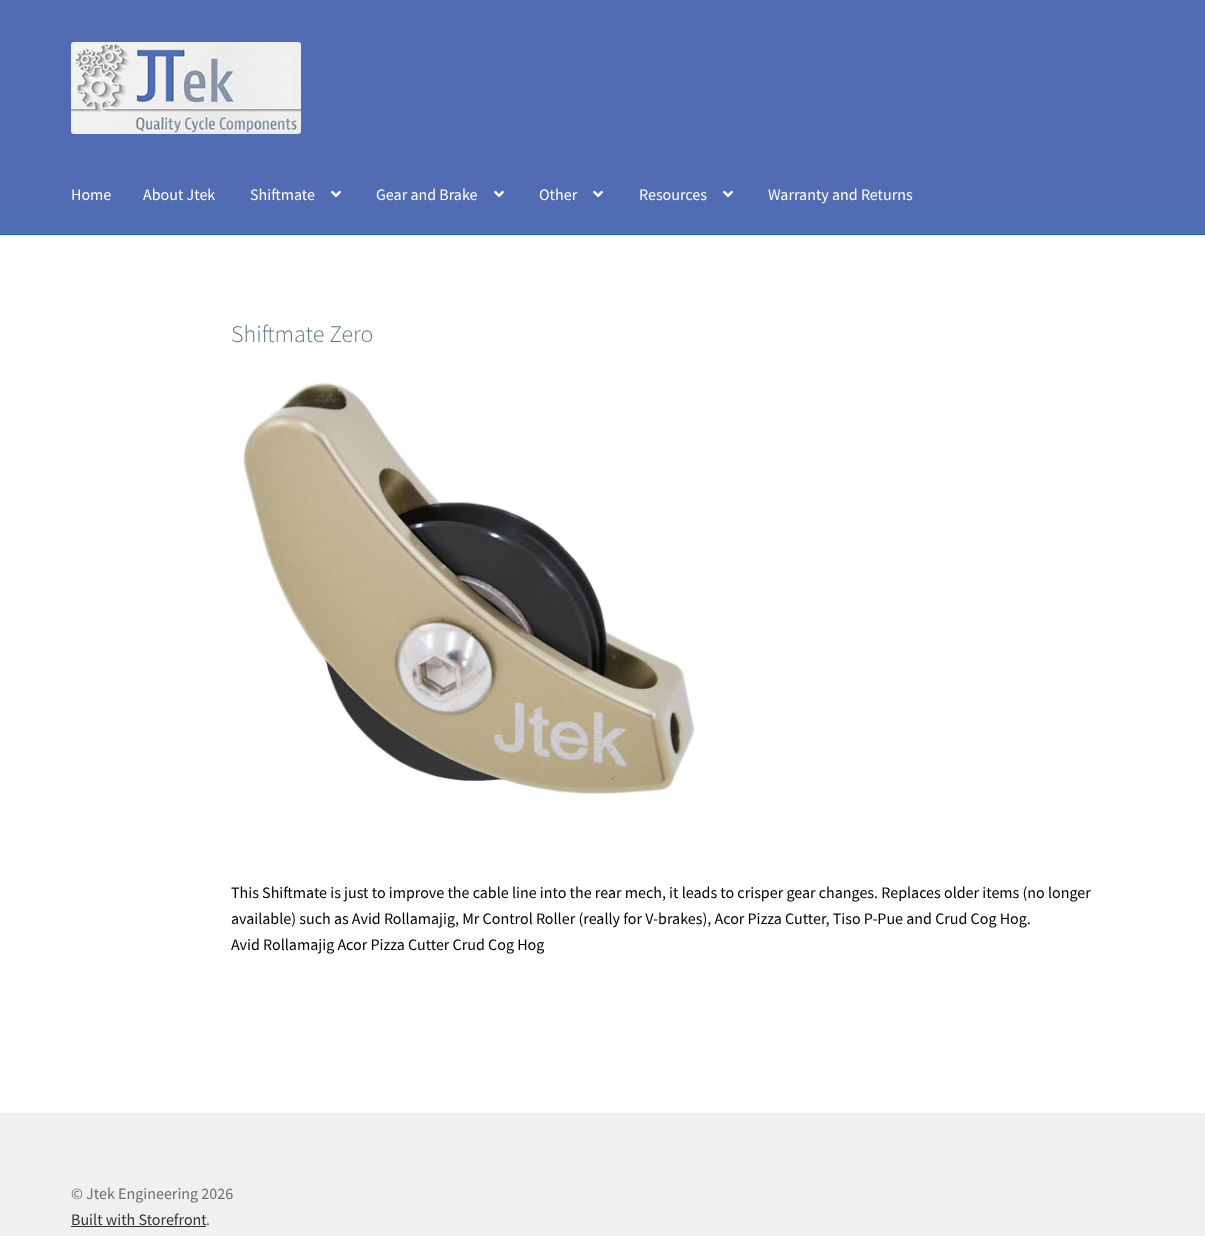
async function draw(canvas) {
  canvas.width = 1205;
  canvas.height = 1236;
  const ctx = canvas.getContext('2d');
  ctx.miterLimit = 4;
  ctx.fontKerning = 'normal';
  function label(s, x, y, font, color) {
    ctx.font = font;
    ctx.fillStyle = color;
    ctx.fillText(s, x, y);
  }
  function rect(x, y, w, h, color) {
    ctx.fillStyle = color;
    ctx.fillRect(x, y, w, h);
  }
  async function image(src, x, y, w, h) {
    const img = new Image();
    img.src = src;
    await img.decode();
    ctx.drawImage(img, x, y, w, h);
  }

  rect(0, 0, 1205, 1236, '#fff');
  rect(0, 0, 1205, 234, '#516cb3');
  rect(0, 234, 1205, 1, '#0f64af');
  await image('assets/img1.png', 71, 42, 230, 92);
  label('Home', 71, 200, '16px Source Sans Pro', '#fff');
  label('About Jtek', 143, 200, '16px Source Sans Pro', '#fff');
  label('Shiftmate', 250, 200, '16px Source Sans Pro', '#fff');
  await image('assets/img2.png', 331, 190, 10, 8);
  label('Gear and Brake', 376, 200, '16px Source Sans Pro', '#fff');
  await image('assets/img2.png', 494, 190, 10, 8);
  label('Other', 539, 200, '16px Source Sans Pro', '#fff');
  await image('assets/img2.png', 593, 190, 10, 8);
  label('Resources', 639, 200, '16px Source Sans Pro', '#fff');
  await image('assets/img2.png', 723, 190, 10, 8);
  label('Warranty and Returns', 768, 200, '16px Source Sans Pro', '#fff');
  label('Shiftmate Zero', 231, 342, '300 24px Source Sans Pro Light', '#607886');
  await image('assets/img3.png', 243, 382, 452, 413);
  label('This Shiftmate is just to improve the cable line into the rear mech, it leads to crisper gear changes. Replaces older items (no longer', 231, 898, '16px Source Sans Pro', '#000');
  label('available) such as Avid Rollamajig, Mr Control Roller (really for V-brakes), Acor Pizza Cutter, Tiso P-Pue and Crud Cog Hog.', 231, 924, '16px Source Sans Pro', '#000');
  label('Avid Rollamajig Acor Pizza Cutter Crud Cog Hog', 231, 950, '16px Source Sans Pro', '#000');
  rect(0, 1113, 1205, 123, '#f0f0f0');
  label('© Jtek Engineering 2026', 71, 1199, '16px Source Sans Pro', '#6d6d6d');
  label('Built with Storefront', 71, 1225, '16px Source Sans Pro', '#333');
  rect(71, 1226, 135, 1, '#333');
  label('.', 206, 1225, '16px Source Sans Pro', '#6d6d6d');
}

draw(document.querySelector('canvas'));
